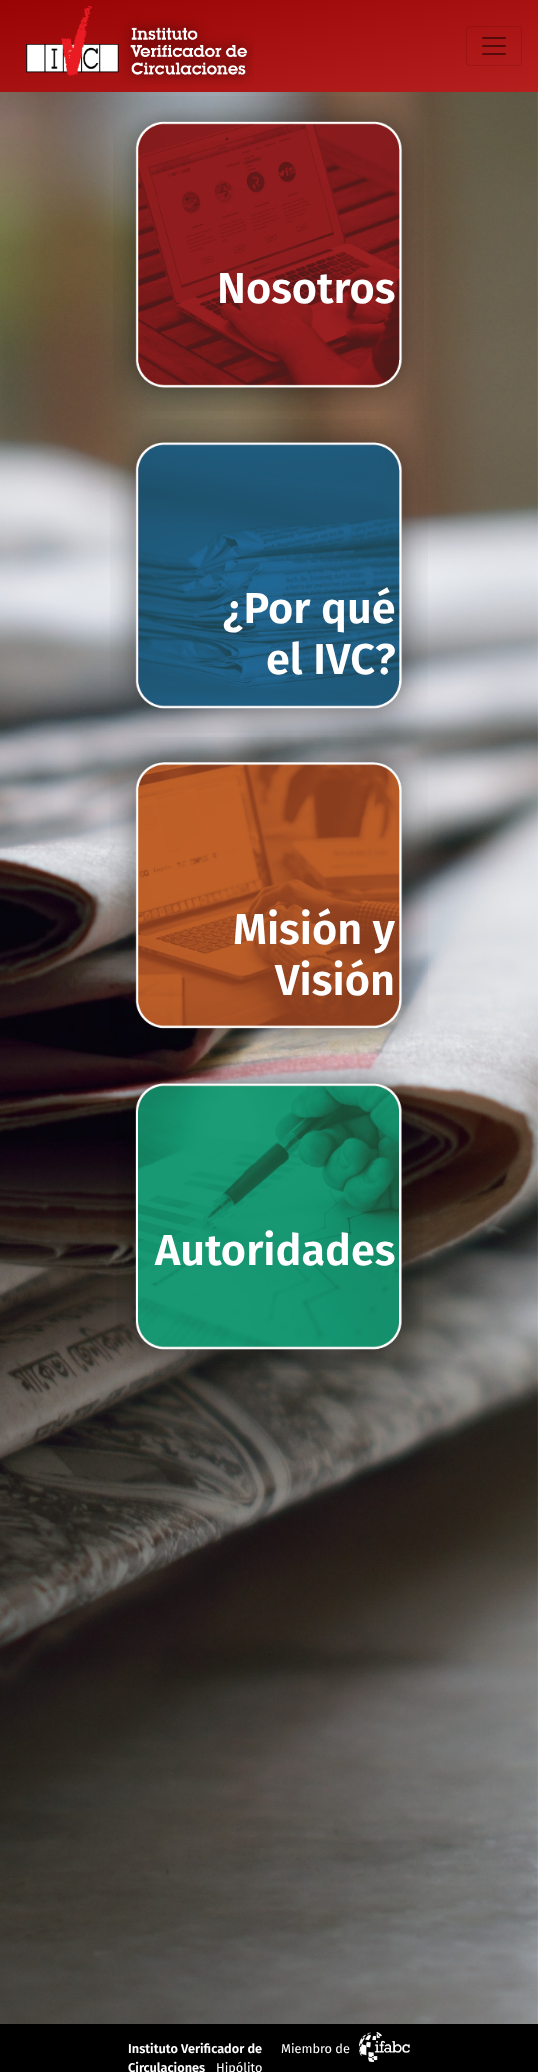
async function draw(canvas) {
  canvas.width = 538;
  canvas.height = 2072;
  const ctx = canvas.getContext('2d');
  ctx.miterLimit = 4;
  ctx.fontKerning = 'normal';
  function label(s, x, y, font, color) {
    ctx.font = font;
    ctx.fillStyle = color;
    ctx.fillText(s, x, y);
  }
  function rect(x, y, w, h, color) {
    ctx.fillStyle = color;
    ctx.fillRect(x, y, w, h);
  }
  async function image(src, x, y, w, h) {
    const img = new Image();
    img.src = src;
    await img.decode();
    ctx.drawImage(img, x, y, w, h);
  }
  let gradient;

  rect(0, 0, 538, 2072, '#fff');
  gradient = ctx.createLinearGradient(254, -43, 284, 135);
  gradient.addColorStop(0, '#990304');
  gradient.addColorStop(1, '#b51f1e');
  ctx.fillStyle = gradient;
  ctx.fillRect(0, 0, 538, 92);
  await image('assets/img1.png', 26, 6, 228, 79);
  ctx.beginPath();
  ctx.roundRect(466.5, 26.5, 55, 39, 3.5);
  ctx.strokeStyle = '#0000001a';
  ctx.stroke();
  await image('assets/img2.png', 482, 37, 24, 18);
  await image('assets/img3.png', 0, 92, 538, 1932);
  await image('assets/img4.png', 113, 96, 311, 315);
  label('Nosotros', 217, 303, '600 43.25px Fira Sans', '#fff');
  await image('assets/img5.png', 110, 419, 318, 314);
  label('¿Por qué', 223, 623, '600 43.25px Fira Sans', '#fff');
  label('el IVC?', 266, 674, '600 43.25px Fira Sans', '#fff');
  await image('assets/img6.png', 110, 737, 318, 317);
  label('Misión y', 233, 944, '600 43.25px Fira Sans', '#fff');
  label('Visión', 275, 995, '600 43.25px Fira Sans', '#fff');
  await image('assets/img7.png', 116, 1058, 307, 312);
  label('Autoridades', 155, 1265, '600 43.25px Fira Sans', '#fff');
  rect(0, 2024, 538, 48, '#000');
  label('Instituto Verificador de', 128, 2053, '600 12.75px Fira Sans', '#fff');
  label('Circulaciones', 128, 2072, '600 12.75px Fira Sans', '#fff');
  label('Hipólito', 216, 2072, '12.75px Fira Sans', '#fff');
  label('Miembro de', 281, 2053, '12.75px Fira Sans', '#fff');
  await image('assets/img8.png', 359, 2032, 51, 30);
}

draw(document.querySelector('canvas'));
